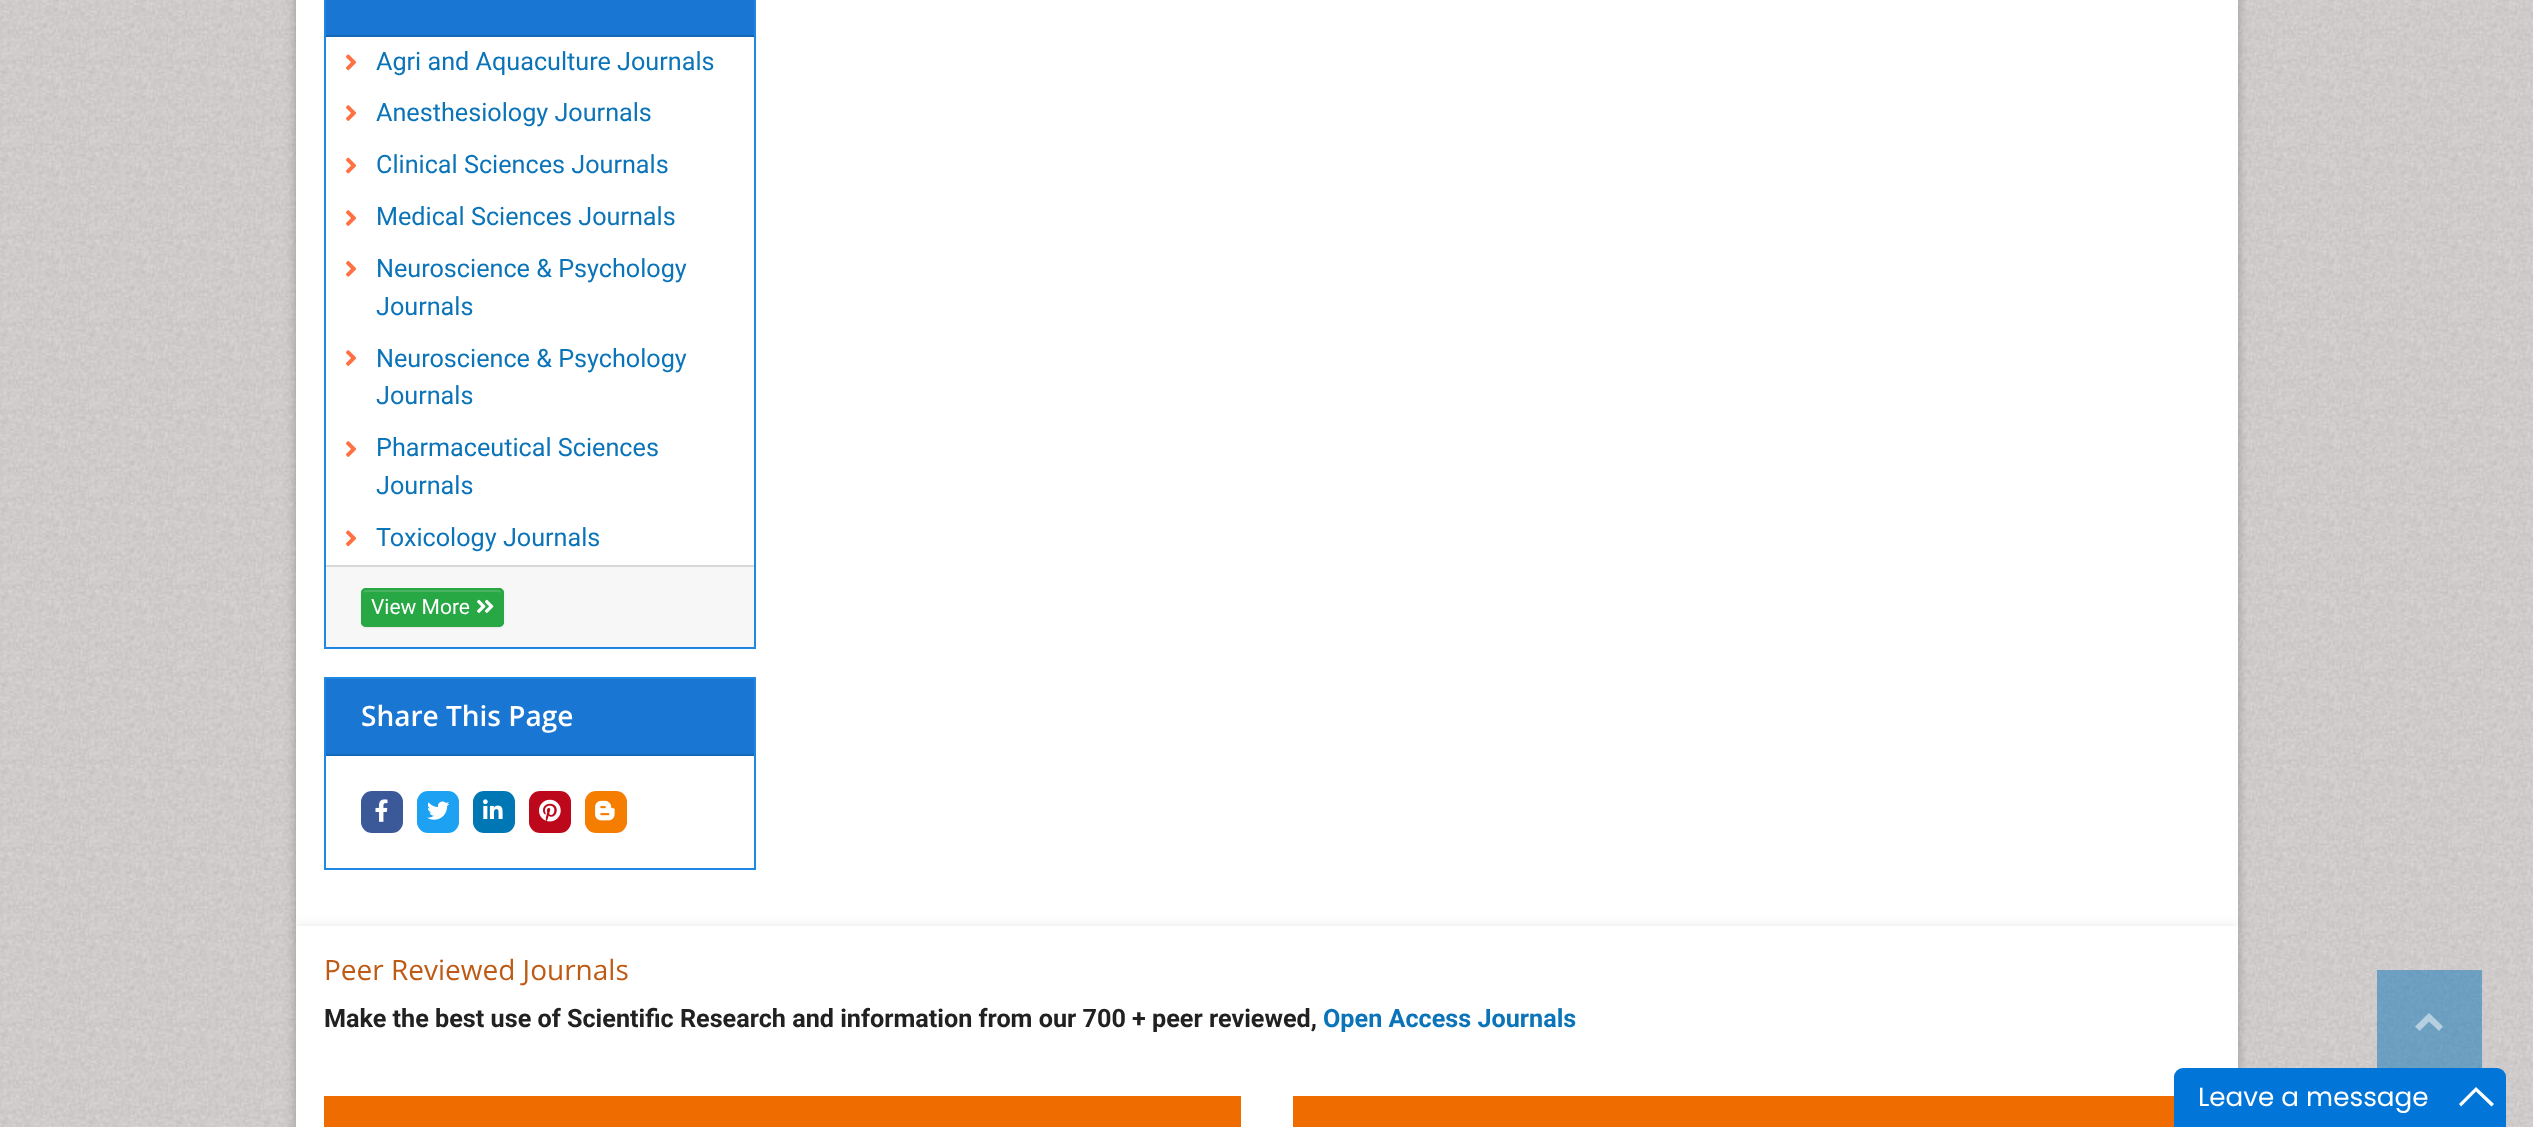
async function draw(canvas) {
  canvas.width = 2533;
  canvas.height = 1127;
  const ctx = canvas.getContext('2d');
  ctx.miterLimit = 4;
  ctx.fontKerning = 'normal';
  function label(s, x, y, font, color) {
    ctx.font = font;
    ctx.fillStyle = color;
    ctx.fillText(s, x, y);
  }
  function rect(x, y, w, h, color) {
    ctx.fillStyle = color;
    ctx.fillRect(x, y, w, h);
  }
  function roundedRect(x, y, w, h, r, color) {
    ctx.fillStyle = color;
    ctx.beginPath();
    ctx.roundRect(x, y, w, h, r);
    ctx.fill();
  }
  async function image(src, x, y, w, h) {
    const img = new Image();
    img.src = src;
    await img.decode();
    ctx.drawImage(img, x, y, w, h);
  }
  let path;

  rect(0, 0, 2533, 1127, '#fff');
  await image('assets/img1.png', 0, 0, 2533, 1127);
  ctx.fillStyle = '#0000001f';
  ctx.filter = 'blur(7px)';
  ctx.beginPath();
  ctx.rect(296, -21, 1942, 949);
  ctx.fill();
  ctx.filter = 'none';
  ctx.fillStyle = '#00000024';
  ctx.filter = 'blur(3.5px)';
  ctx.beginPath();
  ctx.rect(296, -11, 1942, 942);
  ctx.fill();
  ctx.filter = 'none';
  rect(296, 0, 1942, 926, '#fff');
  ctx.strokeStyle = '#1e88e5';
  ctx.lineWidth = 2;
  ctx.strokeRect(325, -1, 430, 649);
  rect(326, 0, 428, 35, '#1976d2');
  rect(326, 35, 428, 2, '#1667b8');
  await image('assets/img2.png', 346, 54, 11, 17);
  label('Agri and Aquaculture Journals', 376, 70, '25.2px Roboto', '#0b74b9');
  await image('assets/img3.png', 346, 105, 11, 16);
  label('Anesthesiology Journals', 376, 121, '25.2px Roboto', '#0b74b9');
  await image('assets/img4.png', 346, 157, 11, 17);
  label('Clinical Sciences Journals', 376, 173, '25.2px Roboto', '#0b74b9');
  await image('assets/img3.png', 346, 210, 11, 16);
  label('Medical Sciences Journals', 376, 225, '25.2px Roboto', '#0b74b9');
  await image('assets/img5.png', 346, 260, 11, 17);
  label('Neuroscience & Psychology', 376, 277, '25.2px Roboto', '#0b74b9');
  label('Journals', 376, 315, '25.2px Roboto', '#0b74b9');
  await image('assets/img3.png', 346, 350, 11, 16);
  label('Neuroscience & Psychology', 376, 367, '25.2px Roboto', '#0b74b9');
  label('Journals', 376, 404, '25.2px Roboto', '#0b74b9');
  await image('assets/img3.png', 346, 441, 11, 16);
  label('Pharmaceutical Sciences', 376, 456, '25.2px Roboto', '#0b74b9');
  label('Journals', 376, 494, '25.2px Roboto', '#0b74b9');
  await image('assets/img2.png', 346, 530, 11, 17);
  label('Toxicology Journals', 376, 546, '25.2px Roboto', '#0b74b9');
  rect(326, 567, 428, 81, '#00000008');
  rect(326, 565, 428, 2, '#d8d8d8');
  ctx.fillStyle = '#00000012';
  ctx.filter = 'blur(1px)';
  ctx.beginPath();
  ctx.roundRect(361, 590, 143, 38, 5);
  ctx.fill();
  ctx.filter = 'none';
  roundedRect(361, 588, 143, 39, 5, '#28a745');
  ctx.fillStyle = '#48b461';
  path = new Path2D('M366 592H499C501 592 502 593 502 595V594C502 592 500 590 498 590H366C364 590 362 592 362 594V595C362 593 364 592 366 592Z');
  ctx.fill(path);
  ctx.beginPath();
  ctx.roundRect(362, 589, 141, 37, 4);
  ctx.strokeStyle = '#28a745';
  ctx.stroke();
  label('View More', 371, 614, '21px Roboto', '#fff');
  await image('assets/img6.png', 477, 599, 17, 14);
  ctx.strokeStyle = '#1e88e5';
  ctx.strokeRect(325, 678, 430, 191);
  rect(326, 679, 428, 75, '#1976d2');
  rect(326, 754, 428, 2, '#1667b8');
  label('Share This Page', 361, 726, '600 28px Open Sans', '#fff');
  roundedRect(361, 791, 42, 42, 11, '#3b5998');
  await image('assets/img7.png', 375, 799, 13, 23);
  roundedRect(417, 791, 42, 42, 11, '#1da1f2');
  await image('assets/img8.png', 427, 801, 23, 19);
  roundedRect(473, 791, 42, 42, 11, '#0077b5');
  await image('assets/img9.png', 483, 799, 20, 20);
  roundedRect(529, 791, 42, 42, 11, '#bd081c');
  await image('assets/img10.png', 539, 799, 22, 23);
  roundedRect(585, 791, 42, 42, 11, '#f57d00');
  await image('assets/img11.png', 595, 800, 20, 21);
  ctx.fillStyle = '#0000001f';
  ctx.filter = 'blur(7px)';
  ctx.beginPath();
  ctx.rect(296, 928, 1942, 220);
  ctx.fill();
  ctx.filter = 'none';
  ctx.fillStyle = '#00000024';
  ctx.filter = 'blur(3.5px)';
  ctx.beginPath();
  ctx.rect(296, 931, 1942, 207);
  ctx.fill();
  ctx.filter = 'none';
  rect(296, 926, 1942, 201, '#fff');
  label('Peer Reviewed Journals', 324, 980, '28px Open Sans', '#bf5a14');
  label('Make the best use of Scientific Research and information from our 700 + peer reviewed,', 324, 1027, 'bold 25.2px Roboto', '#212121');
  label('Open Access Journals', 1323, 1027, 'bold 25.2px Roboto', '#0b74b9');
  ctx.strokeStyle = '#ef6c00';
  ctx.strokeRect(325, 1097, 915, 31);
  rect(326, 1098, 913, 29, '#ef6c00');
  ctx.strokeRect(1294, 1097, 915, 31);
  rect(1295, 1098, 879, 29, '#ef6c00');
  rect(2377, 970, 105, 98, '#0b74b980');
  ctx.fillStyle = '#ffffff80';
  path = new Path2D('M2429 1013L2443 1026.5L2439 1031L2429 1021.5L2419.5 1031L2415 1026.5Z');
  ctx.fill(path);
  ctx.fillStyle = '#0275d8';
  ctx.beginPath();
  ctx.roundRect(2174, 1068, 332, 59, [9, 9, 0, 0]);
  ctx.fill();
  label('Leave a message', 2198, 1106, '26.25px Poppins', '#fff');
  path = new Path2D('M2476 1087L2494 1104L2491.5 1106.5L2476 1091.5L2461 1106.5L2459 1104Z');
  ctx.fill(path);
}

draw(document.querySelector('canvas'));
